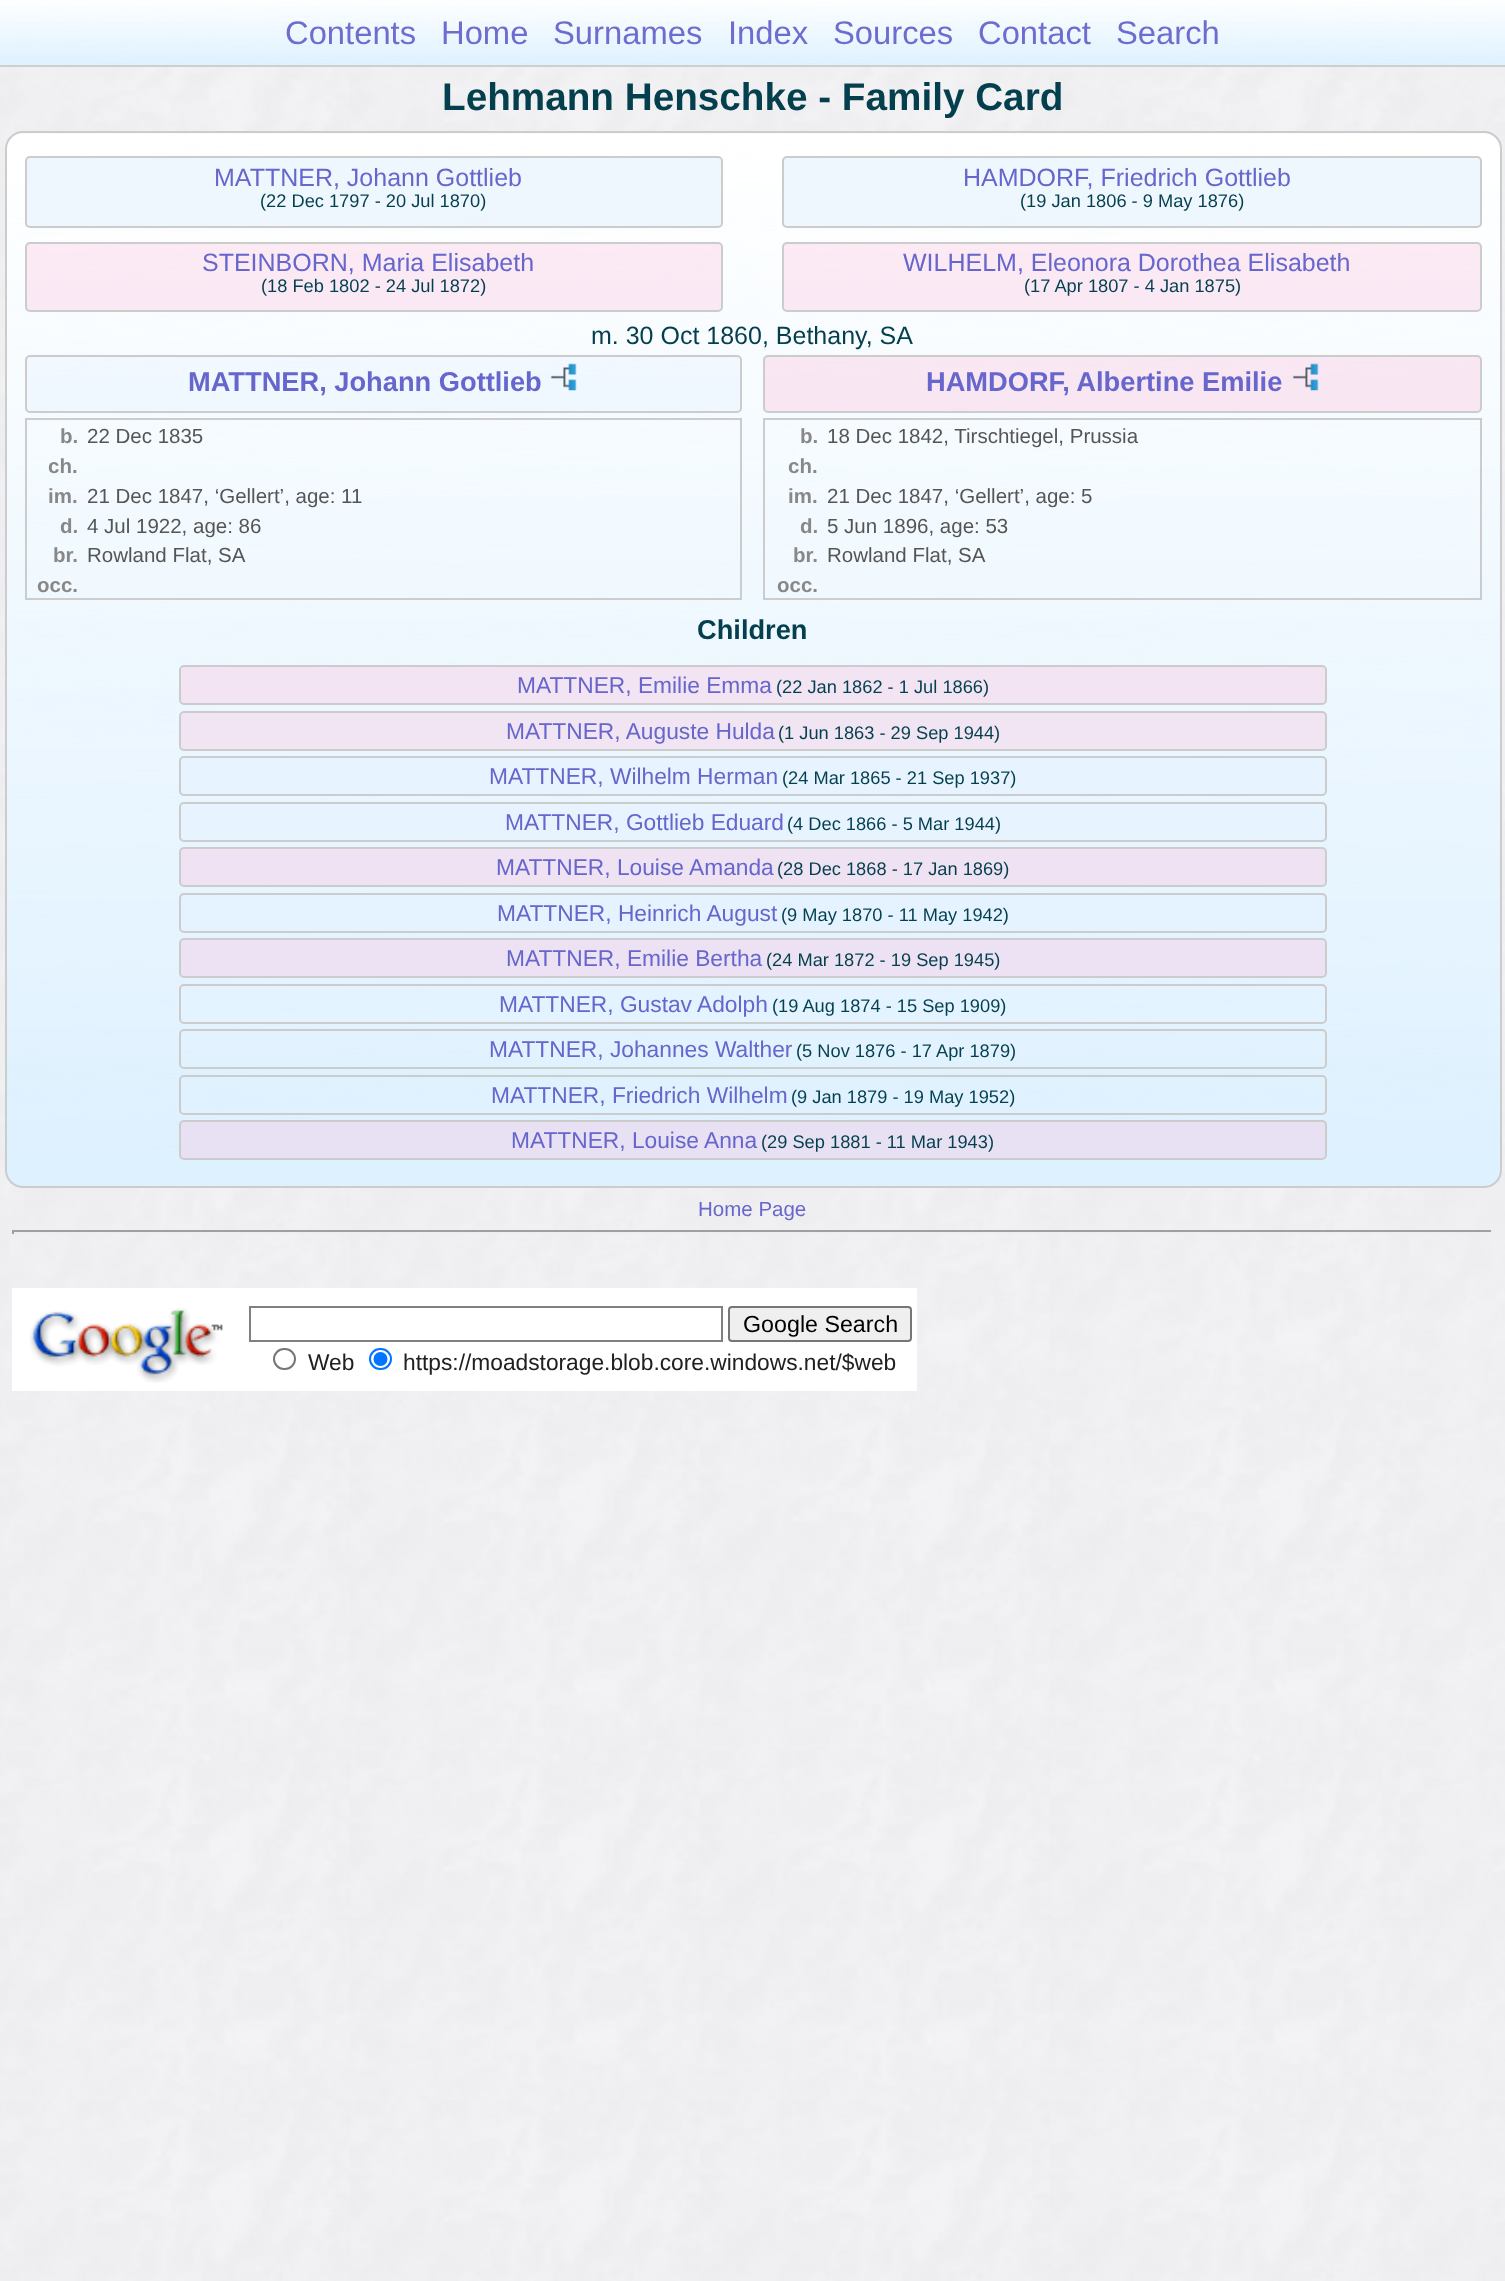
async function draw(canvas) {
  canvas.width = 1505;
  canvas.height = 2281;
  const ctx = canvas.getContext('2d');
  ctx.miterLimit = 4;
  ctx.fontKerning = 'normal';
  function label(s, x, y, font, color) {
    ctx.font = font;
    ctx.fillStyle = color;
    ctx.fillText(s, x, y);
  }
  function rect(x, y, w, h, color) {
    ctx.fillStyle = color;
    ctx.fillRect(x, y, w, h);
  }
  function roundedRect(x, y, w, h, r, color) {
    ctx.fillStyle = color;
    ctx.beginPath();
    ctx.roundRect(x, y, w, h, r);
    ctx.fill();
  }
  async function image(src, x, y, w, h) {
    const img = new Image();
    img.src = src;
    await img.decode();
    ctx.drawImage(img, x, y, w, h);
  }

  rect(0, 0, 1505, 2281, '#fff');
  await image('assets/img1.png', 0, 0, 1505, 2281);
  rect(0, 0, 1505, 65, '#def1fff2');
  await image('assets/img2.png', 0, 0, 1505, 67);
  rect(0, 65, 1505, 2, '#ccccccf2');
  rect(0, 0, 1505, 61, '#def1fff2');
  await image('assets/img3.png', 0, 0, 1505, 67);
  rect(0, 65, 1505, 2, '#ccccccf2');
  label('Contents', 285, 44, '32.75px Liberation Sans', '#6d6dcf');
  label('Home', 441, 44, '32.75px Liberation Sans', '#6d6dcf');
  label('Surnames', 553, 44, '32.75px Liberation Sans', '#6d6dcf');
  label('Index', 728, 44, '32.75px Liberation Sans', '#6d6dcf');
  label('Sources', 833, 44, '32.75px Liberation Sans', '#6d6dcf');
  label('Contact', 978, 44, '32.75px Liberation Sans', '#6d6dcf');
  label('Search', 1116, 44, '32.75px Liberation Sans', '#6d6dcf');
  label('Lehmann Henschke - Family Card', 442, 110, 'bold 38.7px Liberation Sans', '#043f4e');
  roundedRect(5, 131, 1497, 1057, 18, '#def1ff');
  await image('assets/img4.png', 5, 132, 1497, 1056);
  ctx.beginPath();
  ctx.roundRect(6, 132, 1495, 1055, 17);
  ctx.strokeStyle = '#ccc';
  ctx.lineWidth = 2;
  ctx.stroke();
  ctx.fillStyle = '#e0effe82';
  ctx.beginPath();
  ctx.roundRect(26, 157, 696, 70, 4);
  ctx.fill();
  ctx.stroke();
  label('MATTNER, Johann Gottlieb', 214, 186, '25px Liberation Sans', '#66c');
  label('(22 Dec 1797 - 20 Jul 1870)', 260, 207, '18.25px Liberation Sans', '#043f4e');
  ctx.fillStyle = '#e0effe82';
  ctx.beginPath();
  ctx.roundRect(783, 157, 698, 70, 4);
  ctx.fill();
  ctx.stroke();
  label('HAMDORF, Friedrich Gottlieb', 963, 186, '25px Liberation Sans', '#66c');
  label('(19 Jan 1806 - 9 May 1876)', 1020, 207, '18.25px Liberation Sans', '#043f4e');
  ctx.fillStyle = '#fcb7d647';
  ctx.beginPath();
  ctx.roundRect(26, 243, 696, 68, 4);
  ctx.fill();
  ctx.stroke();
  label('STEINBORN, Maria Elisabeth', 202, 271, '25px Liberation Sans', '#66c');
  label('(18 Feb 1802 - 24 Jul 1872)', 261, 292, '18.25px Liberation Sans', '#043f4e');
  ctx.fillStyle = '#fcb7d647';
  ctx.beginPath();
  ctx.roundRect(783, 243, 698, 68, 4);
  ctx.fill();
  ctx.stroke();
  label('WILHELM, Eleonora Dorothea Elisabeth', 903, 271, '25px Liberation Sans', '#66c');
  label('(17 Apr 1807 - 4 Jan 1875)', 1024, 292, '18.25px Liberation Sans', '#043f4e');
  label('m. 30 Oct 1860, Bethany, SA', 591, 344, '25px Liberation Sans', '#043f4e');
  ctx.fillStyle = '#e0effe4d';
  ctx.beginPath();
  ctx.roundRect(26, 356, 715, 56, 4);
  ctx.fill();
  ctx.stroke();
  label('MATTNER, Johann Gottlieb', 188, 391, 'bold 27.25px Liberation Sans', '#66c');
  await image('assets/img5.png', 550, 363, 27, 28);
  ctx.fillStyle = '#fcb7d64d';
  ctx.beginPath();
  ctx.roundRect(764, 356, 717, 56, 4);
  ctx.fill();
  ctx.stroke();
  label('HAMDORF, Albertine Emilie', 926, 391, 'bold 27.25px Liberation Sans', '#66c');
  await image('assets/img6.png', 1292, 363, 27, 28);
  ctx.strokeRect(26, 419, 715, 180);
  label('b.', 60, 443, 'bold 20.5px Liberation Sans', '#888');
  label('22 Dec 1835', 87, 443, '20.5px Liberation Sans', '#555');
  label('ch.', 48, 473, 'bold 20.5px Liberation Sans', '#888');
  label('im.', 48, 503, 'bold 20.5px Liberation Sans', '#888');
  label('21 Dec 1847, ‘Gellert’, age: 11', 87, 503, '20.5px Liberation Sans', '#555');
  label('d.', 60, 533, 'bold 20.5px Liberation Sans', '#888');
  label('4 Jul 1922, age: 86', 87, 533, '20.5px Liberation Sans', '#555');
  label('br.', 53, 562, 'bold 20.5px Liberation Sans', '#888');
  label('Rowland Flat, SA', 87, 562, '20.5px Liberation Sans', '#555');
  label('occ.', 37, 592, 'bold 20.5px Liberation Sans', '#888');
  ctx.strokeRect(764, 419, 717, 180);
  label('b.', 800, 443, 'bold 20.5px Liberation Sans', '#888');
  label('18 Dec 1842, Tirschtiegel, Prussia', 827, 443, '20.5px Liberation Sans', '#555');
  label('ch.', 788, 473, 'bold 20.5px Liberation Sans', '#888');
  label('im.', 788, 503, 'bold 20.5px Liberation Sans', '#888');
  label('21 Dec 1847, ‘Gellert’, age: 5', 827, 503, '20.5px Liberation Sans', '#555');
  label('d.', 800, 533, 'bold 20.5px Liberation Sans', '#888');
  label('5 Jun 1896, age: 53', 827, 533, '20.5px Liberation Sans', '#555');
  label('br.', 793, 562, 'bold 20.5px Liberation Sans', '#888');
  label('Rowland Flat, SA', 827, 562, '20.5px Liberation Sans', '#555');
  label('occ.', 777, 592, 'bold 20.5px Liberation Sans', '#888');
  label('Children', 697, 639, 'bold 27.25px Liberation Sans', '#043f4e');
  ctx.fillStyle = '#f2e4f3';
  ctx.beginPath();
  ctx.roundRect(180, 666, 1146, 38, 4);
  ctx.fill();
  ctx.stroke();
  label('MATTNER, Emilie Emma', 517, 693, '22.75px Liberation Sans', '#66c');
  label('(22 Jan 1862 - 1 Jul 1866)', 776, 693, '18.25px Liberation Sans', '#043f4e');
  ctx.fillStyle = '#f1e4f3';
  ctx.beginPath();
  ctx.roundRect(180, 712, 1146, 38, 4);
  ctx.fill();
  ctx.stroke();
  label('MATTNER, Auguste Hulda', 506, 739, '22.75px Liberation Sans', '#66c');
  label('(1 Jun 1863 - 29 Sep 1944)', 778, 739, '18.25px Liberation Sans', '#043f4e');
  ctx.fillStyle = '#e7f4ff';
  ctx.beginPath();
  ctx.roundRect(180, 757, 1146, 38, 4);
  ctx.fill();
  ctx.stroke();
  label('MATTNER, Wilhelm Herman', 489, 784, '22.75px Liberation Sans', '#66c');
  label('(24 Mar 1865 - 21 Sep 1937)', 782, 784, '18.25px Liberation Sans', '#043f4e');
  ctx.fillStyle = '#e7f4ff';
  ctx.beginPath();
  ctx.roundRect(180, 803, 1146, 38, 4);
  ctx.fill();
  ctx.stroke();
  label('MATTNER, Gottlieb Eduard', 505, 830, '22.75px Liberation Sans', '#66c');
  label('(4 Dec 1866 - 5 Mar 1944)', 787, 830, '18.25px Liberation Sans', '#043f4e');
  ctx.fillStyle = '#eee2f3';
  ctx.beginPath();
  ctx.roundRect(180, 848, 1146, 38, 4);
  ctx.fill();
  ctx.stroke();
  label('MATTNER, Louise Amanda', 496, 875, '22.75px Liberation Sans', '#66c');
  label('(28 Dec 1868 - 17 Jan 1869)', 777, 875, '18.25px Liberation Sans', '#043f4e');
  ctx.fillStyle = '#e4f3ff';
  ctx.beginPath();
  ctx.roundRect(180, 894, 1146, 38, 4);
  ctx.fill();
  ctx.stroke();
  label('MATTNER, Heinrich August', 497, 921, '22.75px Liberation Sans', '#66c');
  label('(9 May 1870 - 11 May 1942)', 781, 921, '18.25px Liberation Sans', '#043f4e');
  ctx.fillStyle = '#ece2f3';
  ctx.beginPath();
  ctx.roundRect(180, 939, 1146, 38, 4);
  ctx.fill();
  ctx.stroke();
  label('MATTNER, Emilie Bertha', 506, 966, '22.75px Liberation Sans', '#66c');
  label('(24 Mar 1872 - 19 Sep 1945)', 766, 966, '18.25px Liberation Sans', '#043f4e');
  ctx.beginPath();
  ctx.roundRect(180, 985, 1146, 38, 4);
  ctx.stroke();
  label('MATTNER, Gustav Adolph', 499, 1012, '22.75px Liberation Sans', '#66c');
  label('(19 Aug 1874 - 15 Sep 1909)', 772, 1012, '18.25px Liberation Sans', '#043f4e');
  ctx.beginPath();
  ctx.roundRect(180, 1030, 1146, 38, 4);
  ctx.stroke();
  label('MATTNER, Johannes Walther', 489, 1057, '22.75px Liberation Sans', '#66c');
  label('(5 Nov 1876 - 17 Apr 1879)', 796, 1057, '18.25px Liberation Sans', '#043f4e');
  ctx.beginPath();
  ctx.roundRect(180, 1076, 1146, 38, 4);
  ctx.stroke();
  label('MATTNER, Friedrich Wilhelm', 491, 1103, '22.75px Liberation Sans', '#66c');
  label('(9 Jan 1879 - 19 May 1952)', 791, 1103, '18.25px Liberation Sans', '#043f4e');
  ctx.fillStyle = '#e8e0f3';
  ctx.beginPath();
  ctx.roundRect(180, 1121, 1146, 38, 4);
  ctx.fill();
  ctx.stroke();
  label('MATTNER, Louise Anna', 511, 1148, '22.75px Liberation Sans', '#66c');
  label('(29 Sep 1881 - 11 Mar 1943)', 761, 1148, '18.25px Liberation Sans', '#043f4e');
  label('Home Page', 698, 1216, '20.5px Liberation Sans', '#66c');
  rect(12, 1230, 1481, 2, '#9f9f9f');
  rect(1491, 1230, 2, 4, '#eee');
  rect(12, 1232, 1481, 2, '#eee');
  rect(12, 1230, 2, 4, '#9f9f9f');
  rect(12, 1288, 905, 103, '#fff');
  await image('assets/img7.png', 29, 1308, 194, 75);
  ctx.strokeStyle = '#808080';
  ctx.strokeRect(250, 1307, 472, 34);
  ctx.fillStyle = '#efefef';
  ctx.beginPath();
  ctx.roundRect(729, 1307, 182, 34, 3);
  ctx.fill();
  ctx.strokeStyle = '#767676';
  ctx.stroke();
  label('Google Search', 743, 1332, '23.25px Liberation Sans', '#000');
  ctx.beginPath();
  ctx.roundRect(274, 1349, 21, 20, 10);
  ctx.stroke();
  label('Web', 308, 1370, '22.75px Liberation Sans', '#202020');
  ctx.beginPath();
  ctx.roundRect(370, 1349, 21, 20, 10);
  ctx.strokeStyle = '#0075ff';
  ctx.stroke();
  ctx.fillStyle = '#0075ff';
  ctx.beginPath();
  ctx.arc(380.5, 1359, 7, 0, 2 * Math.PI);
  ctx.fill();
  label('https://moadstorage.blob.core.windows.net/$web', 403, 1370, '22.75px Liberation Sans', '#202020');
}

draw(document.querySelector('canvas'));
